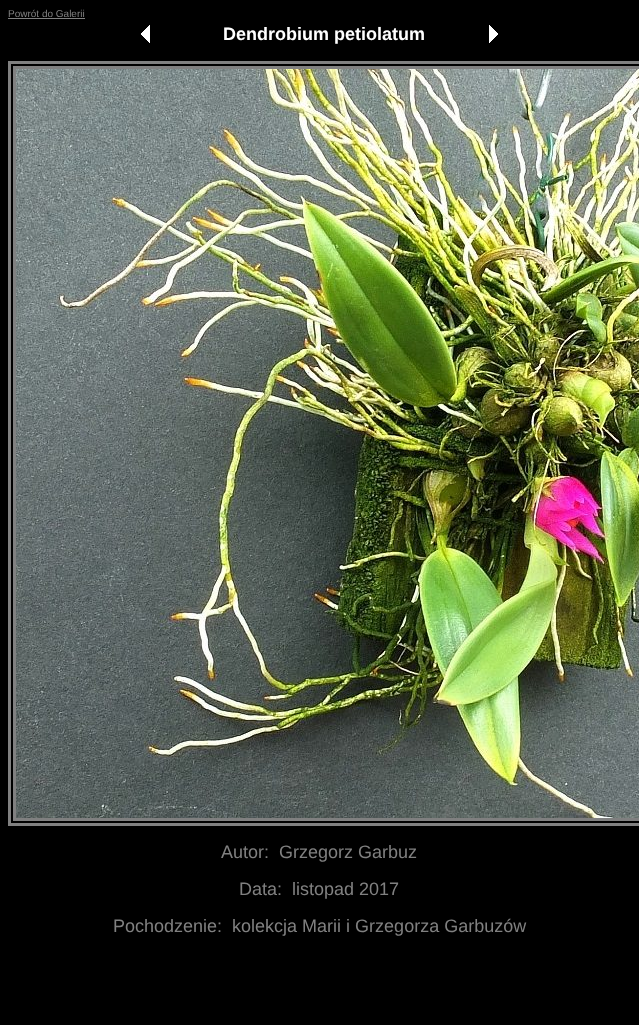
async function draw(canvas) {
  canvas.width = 639;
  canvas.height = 1025;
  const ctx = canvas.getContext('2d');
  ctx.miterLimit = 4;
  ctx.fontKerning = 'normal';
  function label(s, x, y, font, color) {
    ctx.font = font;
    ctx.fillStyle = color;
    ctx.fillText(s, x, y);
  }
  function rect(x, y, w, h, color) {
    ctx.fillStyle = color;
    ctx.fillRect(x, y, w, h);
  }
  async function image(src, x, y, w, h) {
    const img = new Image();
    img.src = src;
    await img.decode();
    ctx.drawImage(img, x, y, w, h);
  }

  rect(0, 0, 639, 1025, '#000');
  label('Powrót do Galerii', 8, 17, '10px Liberation Sans', '#808080');
  rect(8, 18, 77, 1, '#808080');
  await image('assets/img1.png', 141, 25, 9, 18);
  label('Dendrobium petiolatum', 223, 40, 'bold 18px Liberation Sans', '#fff');
  await image('assets/img2.png', 489, 25, 9, 18);
  ctx.strokeStyle = '#808080';
  ctx.lineWidth = 3;
  ctx.strokeRect(9.5, 62.5, 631, 762);
  ctx.strokeRect(14.5, 67.5, 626, 752);
  await image('assets/img3.png', 16, 69, 623, 749);
  label('Autor:  Grzegorz Garbuz', 221, 858, '18px Liberation Sans', '#808080');
  label('Data:  listopad 2017', 239, 895, '18px Liberation Sans', '#808080');
  label('Pochodzenie:  kolekcja Marii i Grzegorza Garbuzów', 113, 932, '18px Liberation Sans', '#808080');
}

draw(document.querySelector('canvas'));
